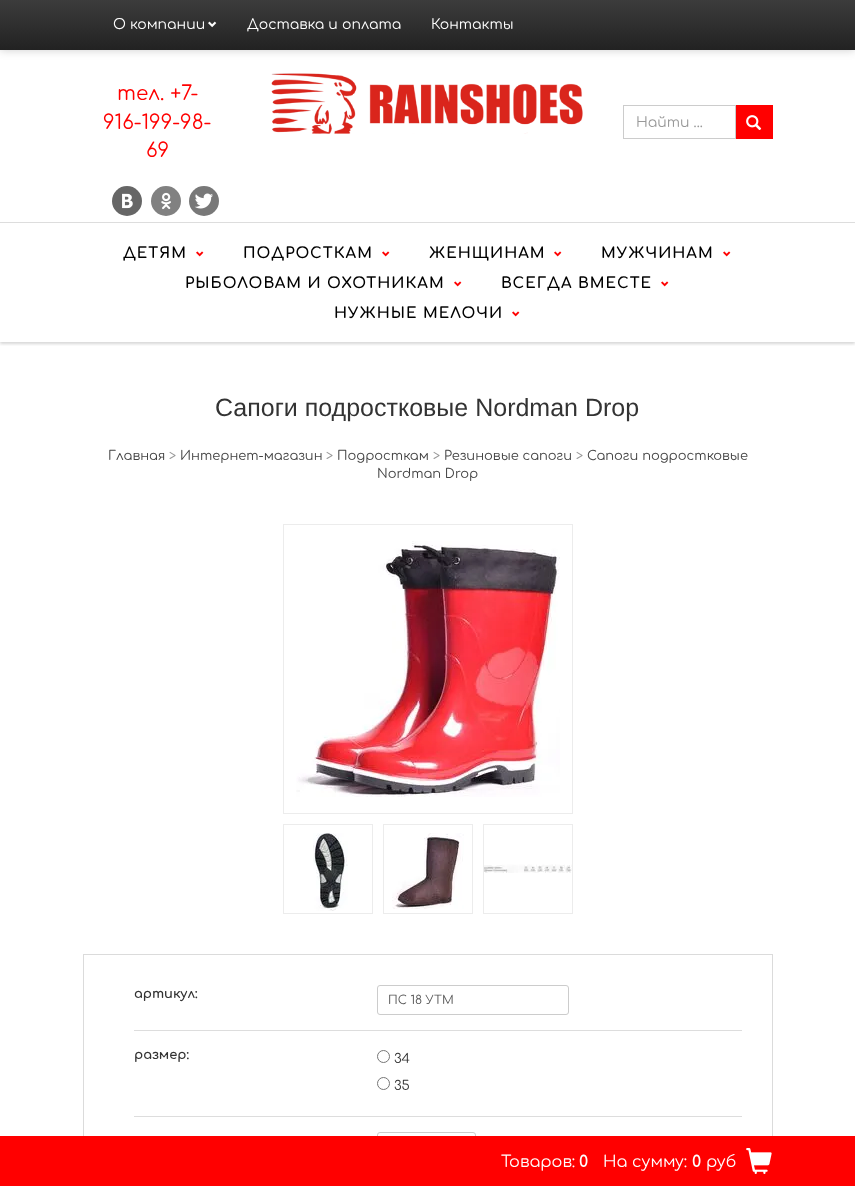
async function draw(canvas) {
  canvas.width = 855;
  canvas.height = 1186;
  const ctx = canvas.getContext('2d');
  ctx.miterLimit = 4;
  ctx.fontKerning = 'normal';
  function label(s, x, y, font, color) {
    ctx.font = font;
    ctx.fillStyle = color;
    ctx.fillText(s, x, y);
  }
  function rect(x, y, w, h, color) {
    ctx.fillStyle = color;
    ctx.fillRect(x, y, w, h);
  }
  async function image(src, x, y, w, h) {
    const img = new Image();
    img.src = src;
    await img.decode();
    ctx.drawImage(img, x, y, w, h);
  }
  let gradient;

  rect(0, 0, 855, 1186, '#fff');
  ctx.fillStyle = '#00000033';
  ctx.filter = 'blur(5px)';
  ctx.beginPath();
  ctx.rect(0, 0, 855, 50);
  ctx.fill();
  ctx.filter = 'none';
  gradient = ctx.createLinearGradient(428, 0, 428, 50);
  gradient.addColorStop(0, '#3c3c3c');
  gradient.addColorStop(1, '#222');
  ctx.fillStyle = gradient;
  ctx.fillRect(0, 0, 855, 50);
  label('О компании', 113, 29, '14px Comfortaa', '#fff');
  await image('assets/img1.png', 208, 21, 9, 7);
  label('Доставка и оплата', 247, 29, '14px Comfortaa', '#fff');
  label('Контакты', 431, 29, '14px Comfortaa', '#fff');
  label('тел. +7-', 117, 100, '20px Comfortaa', '#f00');
  label('916-199-98-', 103, 129, '20px Comfortaa', '#f00');
  label('69', 146, 157, '20px Comfortaa', '#f00');
  await image('assets/img2.png', 112, 186, 30, 30);
  await image('assets/img3.png', 151, 186, 30, 30);
  await image('assets/img4.png', 189, 186, 30, 30);
  await image('assets/img5.png', 271, 73, 312, 61);
  ctx.strokeStyle = '#ccc';
  ctx.strokeRect(623.5, 105.5, 112, 33);
  label('Найти ...', 636, 127, '14px Comfortaa', '#999');
  rect(736, 105, 37, 34, '#f00');
  await image('assets/img6.png', 746, 115, 16, 15);
  ctx.save();
  ctx.beginPath();
  ctx.rect(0, 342, 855, 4);
  ctx.clip();
  ctx.fillStyle = '#32323233';
  ctx.filter = 'blur(1.5px)';
  ctx.beginPath();
  ctx.rect(0, 224, 855, 120);
  ctx.fill();
  ctx.filter = 'none';
  ctx.restore();
  rect(0, 222, 855, 1, '#ddd');
  ctx.letterSpacing = '1px';
  label('ДЕТЯМ', 123, 258, 'bold 15px Comfortaa', '#000');
  await image('assets/img7.png', 196, 251, 8, 6);
  label('ПОДРОСТКАМ', 243, 258, 'bold 15px Comfortaa', '#000');
  await image('assets/img7.png', 382, 251, 8, 6);
  label('ЖЕНЩИНАМ', 429, 258, 'bold 15px Comfortaa', '#000');
  await image('assets/img7.png', 554, 251, 8, 6);
  label('МУЖЧИНАМ', 601, 258, 'bold 15px Comfortaa', '#000');
  await image('assets/img7.png', 723, 251, 8, 6);
  label('РЫБОЛОВАМ И ОХОТНИКАМ', 185, 288, 'bold 15px Comfortaa', '#000');
  await image('assets/img7.png', 454, 281, 8, 6);
  label('ВСЕГДА ВМЕСТЕ', 501, 288, 'bold 15px Comfortaa', '#000');
  await image('assets/img7.png', 661, 281, 8, 6);
  label('НУЖНЫЕ МЕЛОЧИ', 334, 318, 'bold 15px Comfortaa', '#000');
  await image('assets/img7.png', 512, 311, 8, 6);
  ctx.letterSpacing = '0px';
  label('Сапоги подростковые Nordman Drop', 215, 416, '25px Liberation Sans', '#333');
  label('Главная', 108, 460, '13px Comfortaa', '#444');
  label('>', 169, 460, '13px Comfortaa', '#999');
  label('Интернет-магазин', 180, 460, '13px Comfortaa', '#444');
  label('>', 326, 460, '13px Comfortaa', '#999');
  label('Подросткам', 337, 460, '13px Comfortaa', '#444');
  label('>', 433, 460, '13px Comfortaa', '#999');
  label('Резиновые сапоги', 444, 460, '13px Comfortaa', '#444');
  label('>', 576, 460, '13px Comfortaa', '#999');
  label('Сапоги подростковые', 587, 460, '13px Comfortaa', '#444');
  label('Nordman Drop', 377, 478, '13px Comfortaa', '#444');
  ctx.strokeStyle = '#ececec';
  ctx.strokeRect(283.5, 524.5, 289, 289);
  await image('assets/img8.png', 296, 541, 264, 256);
  ctx.strokeRect(283.5, 824.5, 89, 89);
  await image('assets/img9.png', 313, 833, 35, 78);
  ctx.strokeRect(383.5, 824.5, 89, 89);
  await image('assets/img10.png', 392, 833, 72, 76);
  ctx.strokeRect(483.5, 824.5, 89, 89);
  await image('assets/img11.png', 484, 864, 88, 9);
  ctx.strokeStyle = '#dbdbdb';
  ctx.strokeRect(83.5, 954.5, 689, 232);
  rect(134, 1030, 608, 1, '#ddd');
  label('артикул:', 134, 998, 'bold 13px Comfortaa', '#333');
  ctx.beginPath();
  ctx.roundRect(377.5, 985.5, 191, 29, 2.5);
  ctx.strokeStyle = '#ccc';
  ctx.stroke();
  label('ПС 18 УТМ', 388, 1004, '12px Comfortaa', '#555');
  rect(134, 1116, 608, 1, '#ddd');
  label('размер:', 134, 1059, 'bold 13px Comfortaa', '#333');
  ctx.beginPath();
  ctx.arc(383.5, 1056.5, 6, 0, 2 * Math.PI);
  ctx.strokeStyle = '#767676';
  ctx.stroke();
  label('34', 394, 1063, '13px Comfortaa', '#333');
  ctx.beginPath();
  ctx.arc(383.5, 1083.5, 6, 0, 2 * Math.PI);
  ctx.stroke();
  label('35', 394, 1090, '13px Comfortaa', '#333');
  ctx.beginPath();
  ctx.roundRect(377.5, 1132.5, 98, 29, 2.5);
  ctx.strokeStyle = '#ccc';
  ctx.stroke();
  rect(0, 1136, 855, 50, '#f00');
  label('Товаров:', 501, 1167, '16px Comfortaa', '#fff');
  label('0', 579, 1167, 'bold 16px Comfortaa', '#fff');
  label('На сумму:', 603, 1167, '16px Comfortaa', '#fff');
  label('0', 692, 1167, 'bold 16px Comfortaa', '#fff');
  label('руб', 706, 1167, '16px Comfortaa', '#fff');
  await image('assets/img12.png', 746, 1148, 26, 26);
}

draw(document.querySelector('canvas'));
